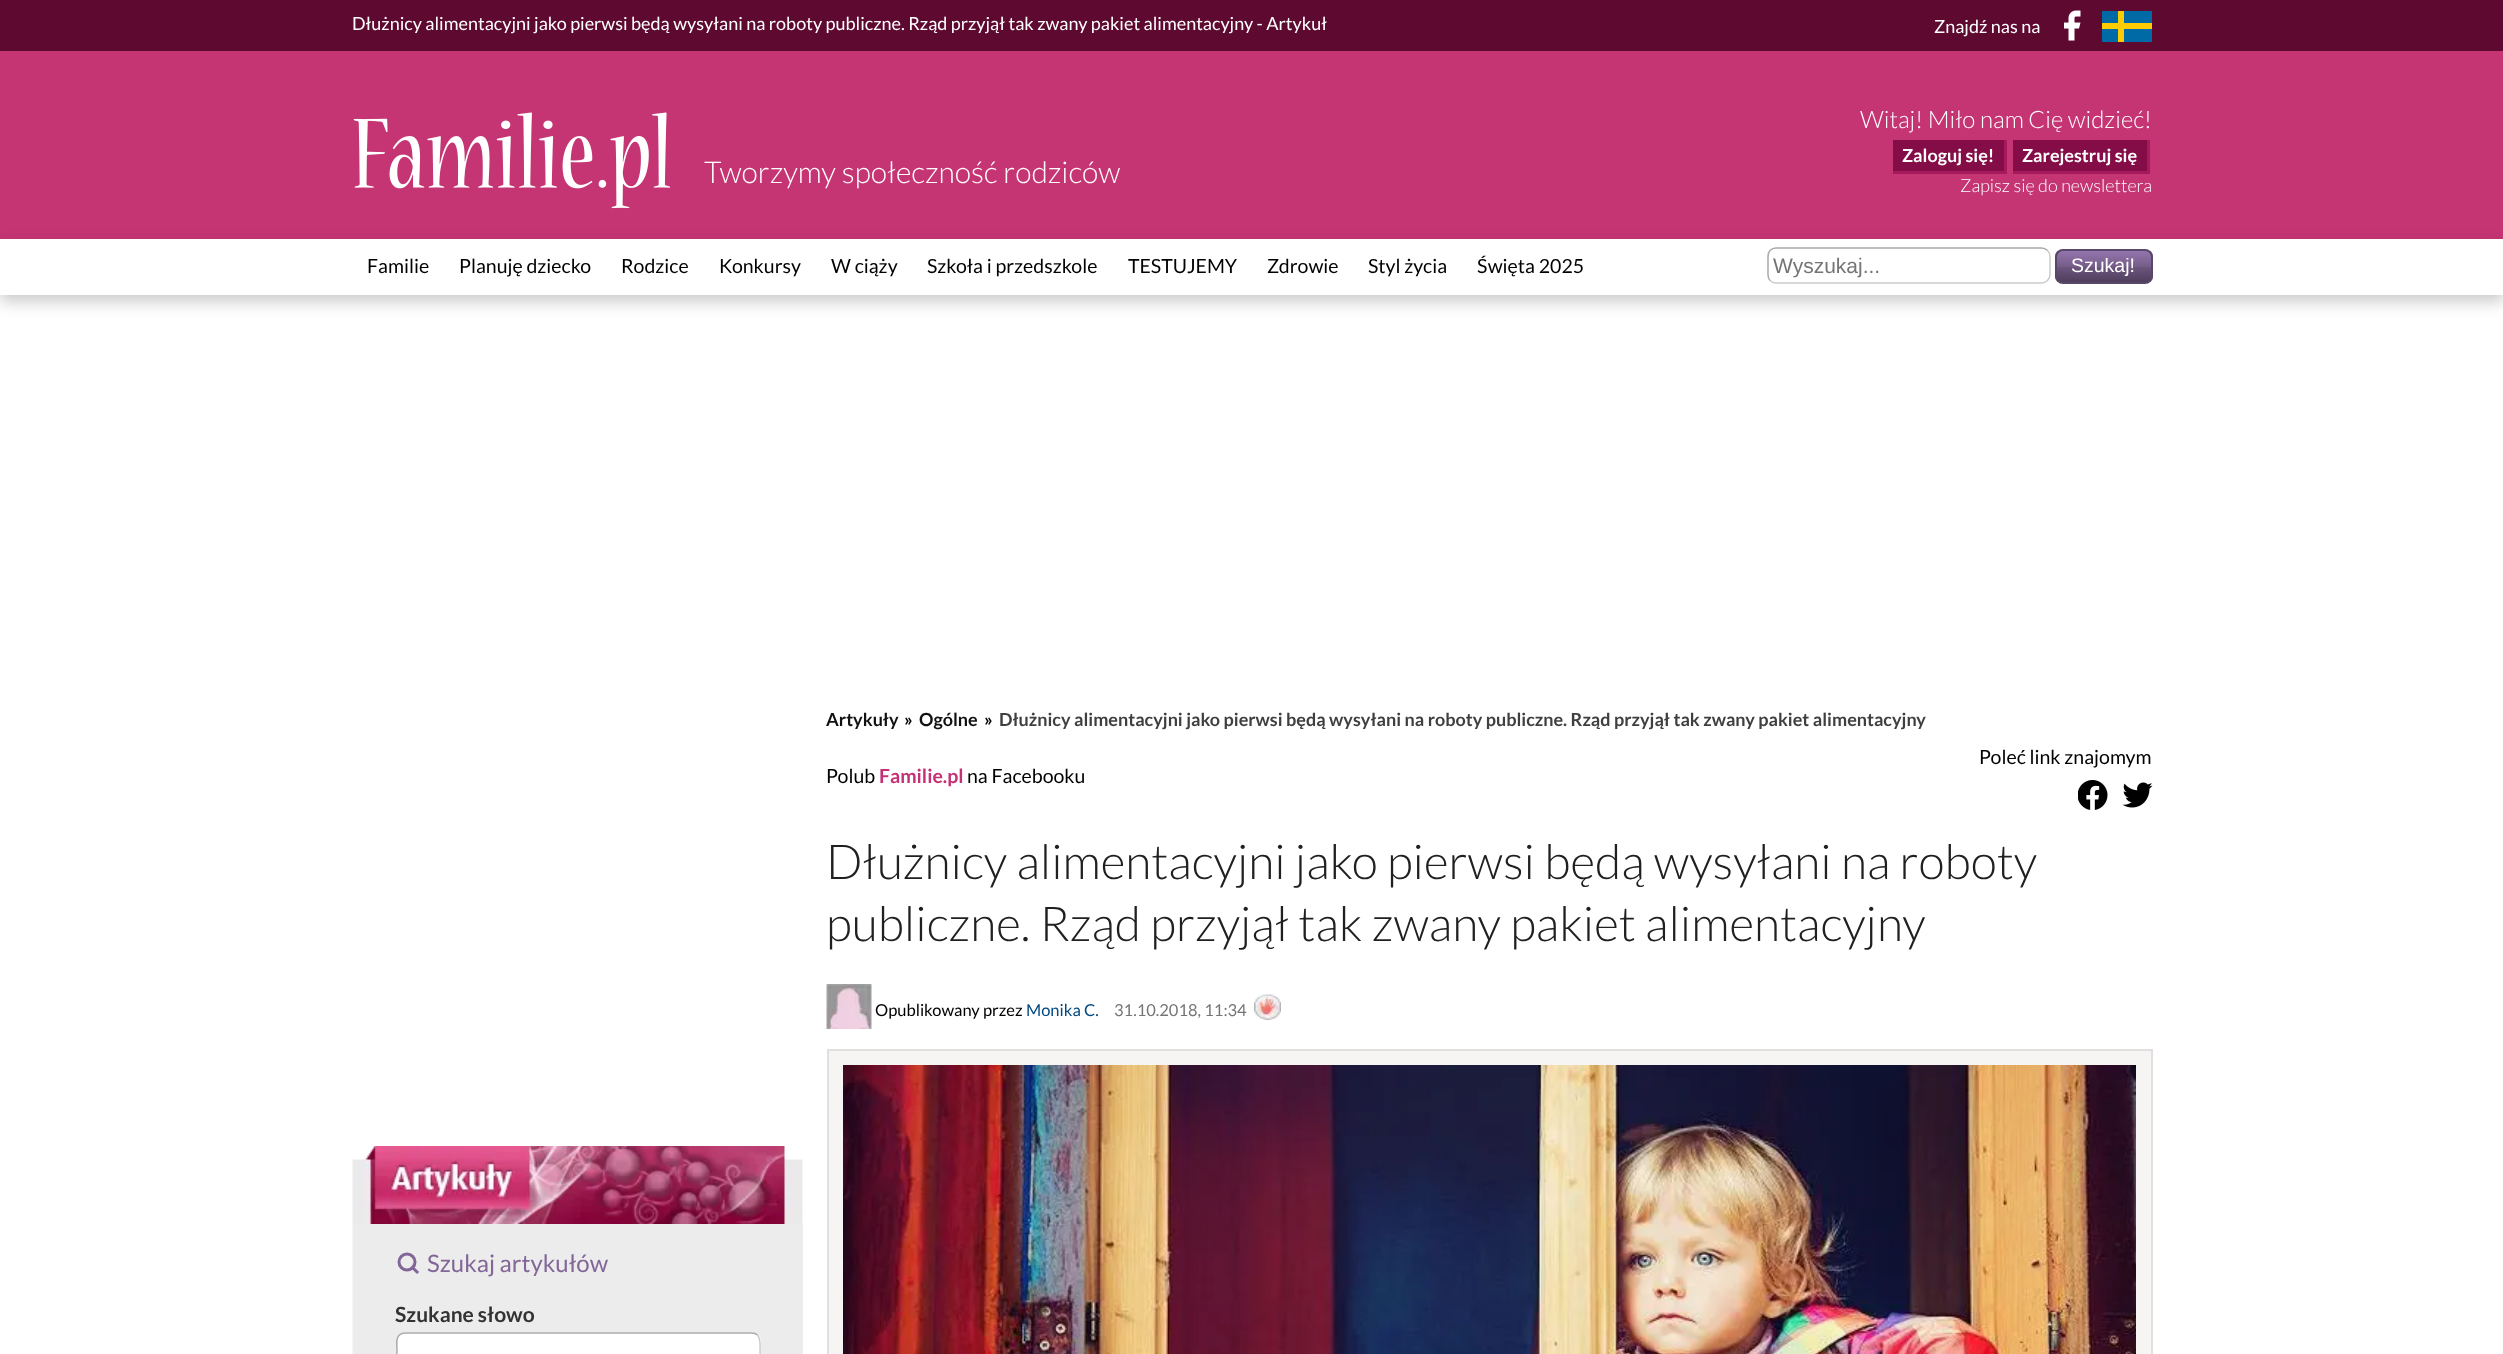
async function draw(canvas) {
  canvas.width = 2503;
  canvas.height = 1354;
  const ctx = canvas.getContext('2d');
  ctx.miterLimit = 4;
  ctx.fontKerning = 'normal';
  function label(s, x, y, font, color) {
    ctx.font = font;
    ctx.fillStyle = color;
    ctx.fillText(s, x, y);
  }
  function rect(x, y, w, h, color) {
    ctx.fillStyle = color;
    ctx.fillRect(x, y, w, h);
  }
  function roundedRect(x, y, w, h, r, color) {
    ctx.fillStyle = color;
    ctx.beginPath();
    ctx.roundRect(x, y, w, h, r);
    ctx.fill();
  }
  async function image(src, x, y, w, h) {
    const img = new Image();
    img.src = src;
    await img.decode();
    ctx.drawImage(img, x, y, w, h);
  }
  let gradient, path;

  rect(0, 0, 2503, 1354, '#fff');
  rect(0, 0, 2503, 51, '#5e0930');
  label('Dłużnicy alimentacyjni jako pierwsi będą wysyłani na roboty publiczne. Rząd przyjął tak zwany pakiet alimentacyjny - Artykuł', 352, 30, '18px Lato', '#fff');
  label('Znajdź nas na', 1934, 33, '18px Lato', '#fff');
  await image('assets/img1.png', 2064, 10, 17, 31);
  rect(2102, 11, 50, 31, '#006aa7');
  rect(2118, 11, 6, 31, '#fecc00');
  rect(2102, 23, 50, 6, '#fecc00');
  rect(0, 51, 2503, 188, '#c53573');
  await image('assets/img2.png', 353, 112, 318, 97);
  label('Tworzymy społeczność rodziców', 704, 183, '300 30px Lato', '#fff');
  label('Witaj! Miło nam Cię widzieć!', 1860, 128, '300 24px Lato', '#fff');
  rect(1893, 140, 111, 31, '#840d47');
  rect(2004, 140, 3, 34, '#a51a5d');
  rect(1893, 171, 114, 3, '#a51a5d');
  label('Zaloguj się!', 1902, 162, 'bold 18px Lato', '#fff');
  rect(2013, 140, 134, 31, '#840d47');
  rect(2147, 140, 3, 34, '#a51a5d');
  rect(2013, 171, 137, 3, '#a51a5d');
  label('Zarejestruj się', 2022, 162, 'bold 18px Lato', '#fff');
  label('Zapisz się do newslettera', 1960, 192, '300 18px Lato', '#fff');
  ctx.save();
  path = new Path2D('M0 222H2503V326H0ZM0 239H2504V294H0Z');
  ctx.clip(path, 'evenodd');
  ctx.fillStyle = '#00000033';
  ctx.filter = 'blur(7.5px)';
  ctx.beginPath();
  ctx.rect(0, 246, 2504, 56);
  ctx.fill();
  ctx.filter = 'none';
  ctx.restore();
  rect(0, 294, 2503, 1, '#fefefe');
  label('Familie', 367, 273, '19.5px Lato', '#000');
  label('Planuję dziecko', 459, 273, '19.5px Lato', '#000');
  label('Rodzice', 621, 273, '19.5px Lato', '#000');
  label('Konkursy', 719, 273, '19.5px Lato', '#000');
  label('W ciąży', 831, 273, '19.5px Lato', '#000');
  label('Szkoła i przedszkole', 927, 273, '19.5px Lato', '#000');
  label('TESTUJEMY', 1128, 273, '19.5px Lato', '#000');
  label('Zdrowie', 1267, 273, '19.5px Lato', '#000');
  label('Styl życia', 1368, 273, '19.5px Lato', '#000');
  label('Święta 2025', 1477, 273, '19.5px Lato', '#000');
  path = new Path2D('M2047.5 250.5C2049 252 2050 254.5 2050 256.5V274.5C2050 276.5 2049 279 2047.5 280.5C2046 282 2043.5 283 2041.5 283H1776C1774 283 1771.5 282 1770 280.5');
  ctx.strokeStyle = '#ccc';
  ctx.lineWidth = 1.5;
  ctx.stroke(path);
  path = new Path2D('M1770 280.5C1768.5 279 1768 276.5 1768 274.5V256.5C1768 254.5 1768.5 252 1770 250.5C1771.5 249 1774 248 1776 248H2041.5C2043.5 248 2046 249 2047.5 250.5');
  ctx.strokeStyle = '#aaa';
  ctx.stroke(path);
  label('Wyszukaj...', 1773, 273, '21px Liberation Sans', '#757575');
  ctx.save();
  ctx.beginPath();
  ctx.roundRect(2055, 249, 98, 35, 8);
  ctx.clip();
  gradient = ctx.createLinearGradient(2104, 251, 2104, 282);
  gradient.addColorStop(0, '#9475ad');
  gradient.addColorStop(0.5, '#765d89');
  gradient.addColorStop(0.51, '#6d567f');
  gradient.addColorStop(1, '#4f3e5c');
  ctx.fillStyle = gradient;
  ctx.fillRect(2055, 251, 98, 31);
  ctx.restore();
  ctx.beginPath();
  ctx.roundRect(2056, 250, 96, 33, 7);
  ctx.strokeStyle = '#594768';
  ctx.lineWidth = 2;
  ctx.stroke();
  label('Szukaj!', 2071, 272, '19.5px Liberation Sans', '#fff');
  label('Artykuły', 826, 726, 'bold 18px Lato', '#111');
  label('»', 904, 726, 'bold 18px Lato', '#000');
  label('Ogólne', 919, 726, 'bold 18px Lato', '#111');
  label('»', 984, 726, 'bold 18px Lato', '#000');
  label('Dłużnicy alimentacyjni jako pierwsi będą wysyłani na roboty publiczne. Rząd przyjął tak zwany pakiet alimentacyjny', 999, 726, 'bold 18px Lato', '#3f3f3f');
  label('Poleć link znajomym', 1979, 764, '19.5px Lato', '#000');
  await image('assets/img3.png', 2078, 780, 30, 30);
  await image('assets/img4.png', 2123, 782, 30, 26);
  label('Polub', 826, 783, '19.5px Lato', '#000');
  label('Familie.pl', 879, 783, 'bold 19.5px Lato', '#c43175');
  label('na Facebooku', 967, 783, '19.5px Lato', '#000');
  label('Dłużnicy alimentacyjni jako pierwsi będą wysyłani na roboty', 826, 879, '300 48px Lato', '#202020');
  label('publiczne. Rząd przyjął tak zwany pakiet alimentacyjny', 826, 941, '300 48px Lato', '#202020');
  await image('assets/img5.png', 826, 984, 46, 45);
  label('Opublikowany przez', 875, 1016, '16.5px Lato', '#000');
  label('Monika C.', 1026, 1016, '16.5px Lato', '#03487f');
  label('31.10.2018, 11:34', 1114, 1016, '16.5px Lato', '#757575');
  await image('assets/img6.png', 1254, 994, 27, 26);
  ctx.fillStyle = '#f6f5f3';
  ctx.beginPath();
  ctx.rect(828, 1050, 1324, 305);
  ctx.fill();
  ctx.strokeStyle = '#e1dfe0';
  ctx.stroke();
  await image('assets/img7.png', 843, 1065, 1293, 289);
  await image('assets/img8.png', 352, 1146, 451, 78);
  rect(353, 1224, 450, 130, '#ececec');
  rect(352, 1224, 1, 130, '#f6f6f6');
  ctx.beginPath();
  ctx.arc(407, 1262, 8, 0, 2 * Math.PI);
  ctx.strokeStyle = '#826697';
  ctx.lineWidth = 3;
  ctx.stroke();
  path = new Path2D('M417 1272L412.5 1267.5');
  ctx.lineCap = 'square';
  ctx.stroke(path);
  label('Szukaj artykułów', 427, 1272, '24px Lato', '#826697');
  label('Szukane słowo', 395, 1322, 'bold 21px Lato', '#333');
  roundedRect(396, 1332, 365, 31, 9, '#fff');
  path = new Path2D('M757.5 1335C761 1339 760 1345.5 760 1350C760 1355.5 761.5 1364 754.5 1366.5L751.5 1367H405C403 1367 400.5 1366.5 399 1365');
  ctx.strokeStyle = '#ccc';
  ctx.lineWidth = 1.5;
  ctx.lineCap = 'butt';
  ctx.stroke(path);
  path = new Path2D('M399 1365C395.5 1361 397 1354.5 397 1350C397 1344.5 395 1336 402 1333.5L405 1333H751.5C753.5 1333 756 1333.5 757.5 1335');
  ctx.strokeStyle = '#aaa';
  ctx.stroke(path);
}

draw(document.querySelector('canvas'));
